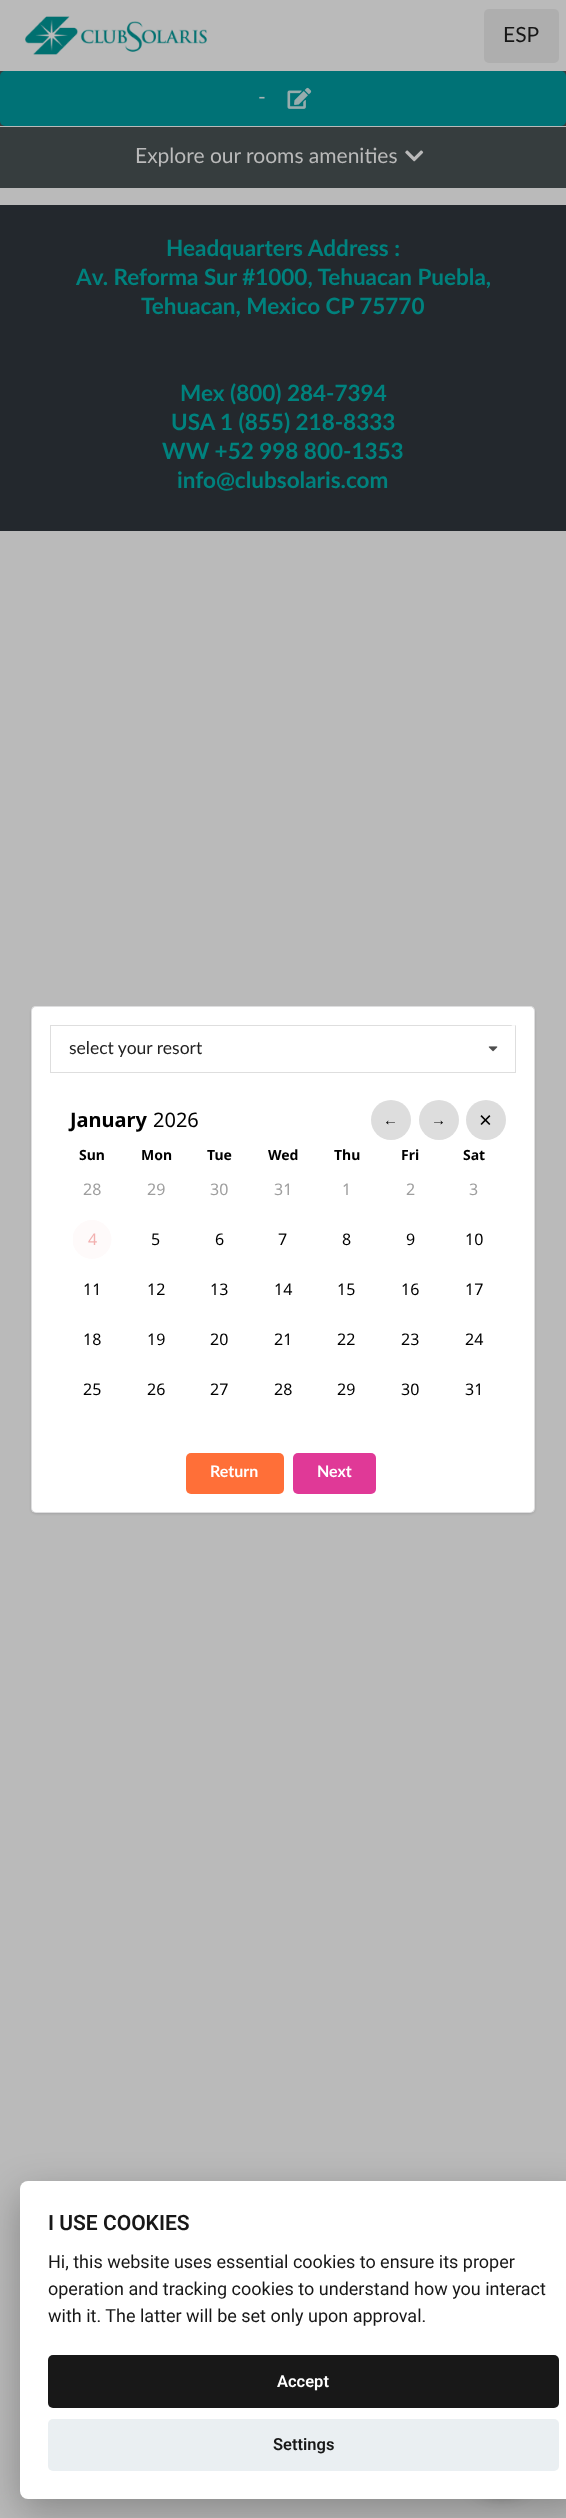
async function draw(canvas) {
  canvas.width = 566;
  canvas.height = 2518;
  const ctx = canvas.getContext('2d');
  ctx.miterLimit = 4;
  ctx.fontKerning = 'normal';
  function label(s, x, y, font, color) {
    ctx.font = font;
    ctx.fillStyle = color;
    ctx.fillText(s, x, y);
  }
  function rect(x, y, w, h, color) {
    ctx.fillStyle = color;
    ctx.fillRect(x, y, w, h);
  }
  function roundedRect(x, y, w, h, r, color) {
    ctx.fillStyle = color;
    ctx.beginPath();
    ctx.roundRect(x, y, w, h, r);
    ctx.fill();
  }
  async function image(src, x, y, w, h) {
    const img = new Image();
    img.src = src;
    await img.decode();
    ctx.drawImage(img, x, y, w, h);
  }

  rect(0, 0, 566, 2518, '#bababa');
  await image('assets/img1.png', 25, 16, 182, 39);
  roundedRect(484, 9, 75, 54, 5, '#aeaeae');
  label('ESP', 503, 42, '21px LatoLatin', '#171717');
  rect(0, 71, 566, 55, '#363d3e');
  roundedRect(0, 71, 566, 55, 5, '#007276');
  label('-', 258, 104, '21px LatoLatin', '#a8b3b4');
  await image('assets/img2.png', 287, 87, 25, 22);
  rect(0, 127, 566, 61, '#363d3e');
  label('Explore our rooms amenities', 135, 163, '21px LatoLatin', '#bababa');
  await image('assets/img3.png', 405, 150, 19, 12);
  rect(0, 205, 566, 326, '#23282d');
  label('Headquarters Address :', 166, 256, 'bold 22.5px LatoLatin', '#00827e');
  label('Av. Reforma Sur #1000, Tehuacan Puebla,', 76, 285, 'bold 22.5px LatoLatin', '#00827e');
  label('Tehuacan, Mexico CP 75770', 141, 314, 'bold 22.5px LatoLatin', '#00827e');
  label('Mex (800) 284-7394', 180, 401, 'bold 22.5px LatoLatin', '#00827e');
  label('USA 1 (855) 218-8333', 171, 430, 'bold 22.5px LatoLatin', '#00827e');
  label('WW +52 998 800-1353', 162, 459, 'bold 22.5px LatoLatin', '#00827e');
  label('info@clubsolaris.com', 177, 488, 'bold 22.5px LatoLatin', '#00827e');
  ctx.fillStyle = '#22242626';
  ctx.filter = 'blur(1px)';
  ctx.beginPath();
  ctx.roundRect(31, 1008, 504, 506, 5);
  ctx.fill();
  ctx.filter = 'none';
  roundedRect(31, 1006, 504, 507, 5, '#fff');
  ctx.beginPath();
  ctx.roundRect(31.5, 1006.5, 503, 506, 4.5);
  ctx.strokeStyle = '#22242626';
  ctx.stroke();
  ctx.strokeStyle = '#dedede';
  ctx.strokeRect(50.5, 1025.5, 465, 47);
  await image('assets/img4.png', 511, 1025, 5, 1);
  label('select your resort', 69, 1054, '17.5px LatoLatin', '#212121');
  await image('assets/img5.png', 488, 1046, 10, 6);
  label('January', 70, 1127, 'bold 20px Noto Sans', '#000');
  label('2026', 153, 1127, '20px Noto Sans', '#000');
  ctx.fillStyle = '#ddd';
  ctx.beginPath();
  ctx.arc(391, 1120, 20, 0, 2 * Math.PI);
  ctx.fill();
  label('←', 383, 1125, '15px Liberation Sans', '#000');
  ctx.fillStyle = '#ddd';
  ctx.beginPath();
  ctx.arc(439, 1120, 20, 0, 2 * Math.PI);
  ctx.fill();
  label('→', 431, 1125, '15px Liberation Sans', '#000');
  ctx.fillStyle = '#ddd';
  ctx.beginPath();
  ctx.arc(486, 1120, 20, 0, 2 * Math.PI);
  ctx.fill();
  label('×', 479, 1128, '22.5px Noto Sans', '#000');
  label('Sun', 79, 1160, 'bold 14px Noto Sans', '#000');
  label('Mon', 141, 1160, 'bold 14px Noto Sans', '#000');
  label('Tue', 207, 1160, 'bold 14px Noto Sans', '#000');
  label('Wed', 268, 1160, 'bold 14px Noto Sans', '#000');
  label('Thu', 334, 1160, 'bold 14px Noto Sans', '#000');
  label('Fri', 401, 1160, 'bold 14px Noto Sans', '#000');
  label('Sat', 463, 1160, 'bold 14px Noto Sans', '#000');
  label('28', 83, 1195, '16px Noto Sans', '#9e9e9e');
  label('29', 147, 1195, '16px Noto Sans', '#9e9e9e');
  label('30', 210, 1195, '16px Noto Sans', '#9e9e9e');
  label('31', 274, 1195, '16px Noto Sans', '#9e9e9e');
  label('1', 342, 1195, '16px Noto Sans', '#9e9e9e');
  label('2', 406, 1195, '16px Noto Sans', '#9e9e9e');
  label('3', 469, 1195, '16px Noto Sans', '#9e9e9e');
  ctx.save();
  ctx.beginPath();
  ctx.rect(73, 1220, 40, 39);
  ctx.clip();
  ctx.fillStyle = '#fefafa';
  ctx.beginPath();
  ctx.arc(92, 1239.5, 19.5, 0, 2 * Math.PI);
  ctx.fill();
  ctx.restore();
  label('4', 88, 1245, '16px Noto Sans', '#f2b1b0');
  label('5', 151, 1245, '16px Noto Sans', '#000');
  label('6', 215, 1245, '16px Noto Sans', '#000');
  label('7', 278, 1245, '16px Noto Sans', '#000');
  label('8', 342, 1245, '16px Noto Sans', '#000');
  label('9', 406, 1245, '16px Noto Sans', '#000');
  label('10', 465, 1245, '16px Noto Sans', '#000');
  label('11', 83, 1295, '16px Noto Sans', '#000');
  label('12', 147, 1295, '16px Noto Sans', '#000');
  label('13', 210, 1295, '16px Noto Sans', '#000');
  label('14', 274, 1295, '16px Noto Sans', '#000');
  label('15', 337, 1295, '16px Noto Sans', '#000');
  label('16', 401, 1295, '16px Noto Sans', '#000');
  label('17', 465, 1295, '16px Noto Sans', '#000');
  label('18', 83, 1345, '16px Noto Sans', '#000');
  label('19', 147, 1345, '16px Noto Sans', '#000');
  label('20', 210, 1345, '16px Noto Sans', '#000');
  label('21', 274, 1345, '16px Noto Sans', '#000');
  label('22', 337, 1345, '16px Noto Sans', '#000');
  label('23', 401, 1345, '16px Noto Sans', '#000');
  label('24', 465, 1345, '16px Noto Sans', '#000');
  label('25', 83, 1395, '16px Noto Sans', '#000');
  label('26', 147, 1395, '16px Noto Sans', '#000');
  label('27', 210, 1395, '16px Noto Sans', '#000');
  label('28', 274, 1395, '16px Noto Sans', '#000');
  label('29', 337, 1395, '16px Noto Sans', '#000');
  label('30', 401, 1395, '16px Noto Sans', '#000');
  label('31', 465, 1395, '16px Noto Sans', '#000');
  roundedRect(186, 1453, 98, 41, 5, '#ff6f38');
  label('Return', 210, 1477, 'bold 16px LatoLatin', '#fff');
  roundedRect(293, 1453, 83, 41, 5, '#e03997');
  label('Next', 317, 1477, 'bold 16px LatoLatin', '#fff');
  ctx.fillStyle = '#02020347';
  ctx.filter = 'blur(19px)';
  ctx.beginPath();
  ctx.roundRect(20, 2194, 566, 317, 8);
  ctx.fill();
  ctx.filter = 'none';
  ctx.fillStyle = '#0000001f';
  ctx.filter = 'blur(11px)';
  ctx.beginPath();
  ctx.roundRect(464, 2418, 75, 75, 37.5);
  ctx.fill();
  ctx.filter = 'none';
  ctx.fillStyle = '#00000024';
  ctx.filter = 'blur(6px)';
  ctx.beginPath();
  ctx.roundRect(464, 2424, 75, 75, 37.5);
  ctx.fill();
  ctx.filter = 'none';
  roundedRect(20, 2181, 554, 318, 8, '#fff');
  label('I USE COOKIES', 48, 2230, '600 21px Roboto', '#171717');
  label('Hi, this website uses essential cookies to ensure its proper', 48, 2268, '18px Roboto', '#171717');
  label('operation and tracking cookies to understand how you interact', 48, 2295, '18px Roboto', '#171717');
  label('with it. The latter will be set only upon approval.', 48, 2322, '18px Roboto', '#171717');
  roundedRect(48, 2355, 511, 53, 5, '#181818');
  label('Accept', 277, 2387, '600 16.5px Roboto', '#fff');
  roundedRect(48, 2419, 511, 52, 5, '#eaeff2');
  label('Settings', 273, 2450, '600 16.5px Roboto', '#171717');
}

draw(document.querySelector('canvas'));
